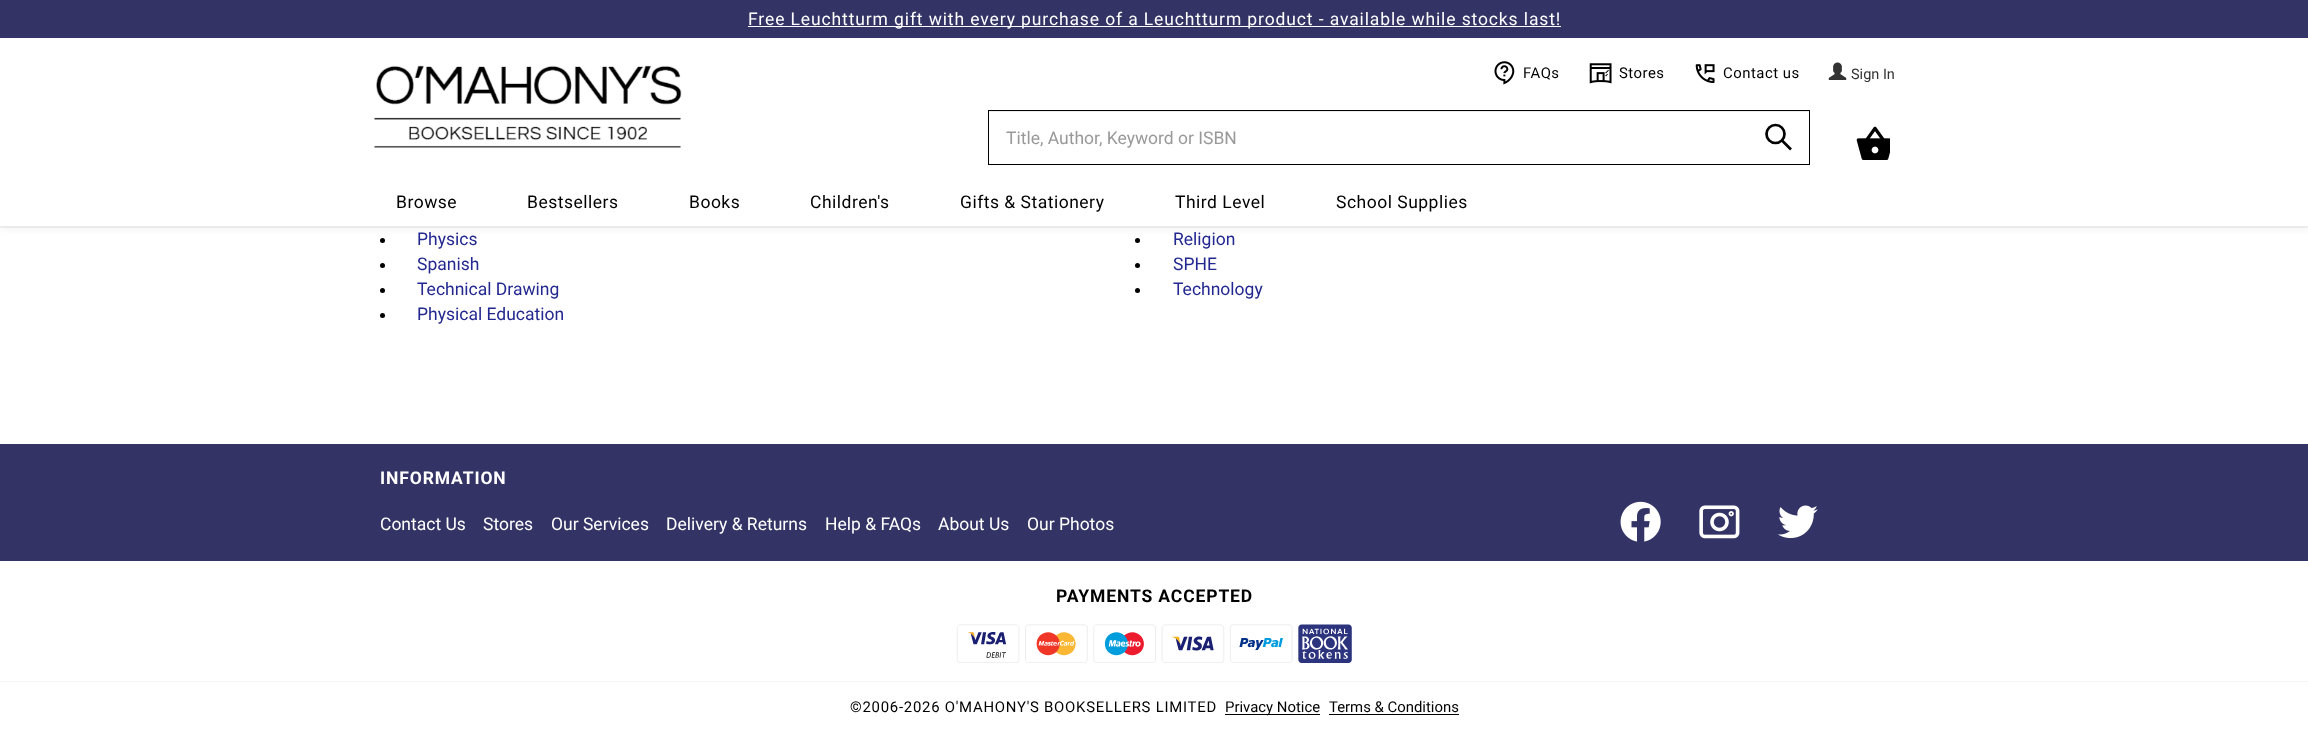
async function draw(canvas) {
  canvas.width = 2308;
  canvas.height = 731;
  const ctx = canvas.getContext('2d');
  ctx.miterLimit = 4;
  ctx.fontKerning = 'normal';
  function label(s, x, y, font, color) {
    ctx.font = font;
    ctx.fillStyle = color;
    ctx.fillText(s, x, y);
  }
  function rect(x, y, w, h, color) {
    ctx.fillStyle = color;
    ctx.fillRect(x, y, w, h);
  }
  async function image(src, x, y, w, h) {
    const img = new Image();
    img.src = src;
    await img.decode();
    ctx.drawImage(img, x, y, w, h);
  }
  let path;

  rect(0, 0, 2308, 731, '#fff');
  ctx.fillStyle = '#000';
  ctx.beginPath();
  ctx.arc(382.5, 240.5, 2.5, 0, 2 * Math.PI);
  ctx.fill();
  ctx.beginPath();
  ctx.arc(1137.5, 240.5, 2.5, 0, 2 * Math.PI);
  ctx.fill();
  ctx.fillStyle = '#0000000d';
  ctx.filter = 'blur(4px)';
  ctx.beginPath();
  ctx.rect(0, 3, 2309, 226);
  ctx.fill();
  ctx.filter = 'none';
  ctx.filter = 'blur(0.5px)';
  ctx.beginPath();
  ctx.rect(0, 1, 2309, 227);
  ctx.fill();
  ctx.filter = 'none';
  rect(0, 38, 2308, 188, '#fff');
  rect(0, 0, 2308, 38, '#336');
  rect(748, 26, 813, 1, '#fff');
  ctx.letterSpacing = '0.88px';
  label('Free Leuchtturm gift with every purchase of a Leuchtturm product - available while stocks last!', 748, 25, '17.5px Roboto', '#fff');
  await image('assets/img1.png', 374, 65, 308, 83);
  await image('assets/img2.png', 1494, 61, 21, 24);
  ctx.letterSpacing = '0.5px';
  label('FAQs', 1523, 78, '14.9px Roboto', '#000');
  await image('assets/img3.png', 1589, 63, 23, 21);
  label('Stores', 1619, 78, '14.9px Roboto', '#000');
  await image('assets/img4.png', 1695, 64, 20, 19);
  label('Contact us', 1723, 78, '14.9px Roboto', '#000');
  await image('assets/img5.png', 1828, 62, 19, 18);
  ctx.letterSpacing = '0px';
  label('Sign In', 1851, 79, '14.5px Roboto', '#333');
  rect(989, 111, 820, 1, '#ececec');
  ctx.strokeStyle = '#000';
  ctx.strokeRect(988.5, 110.5, 821, 54);
  label('Title, Author, Keyword or ISBN', 1006, 144, '17.5px Roboto', '#999');
  ctx.beginPath();
  ctx.arc(1775.5, 134, 9, 0, 2 * Math.PI);
  ctx.lineWidth = 2.7;
  ctx.stroke();
  path = new Path2D('M1781.5 140L1791 149.5');
  ctx.stroke(path);
  await image('assets/img6.png', 1856, 126, 34, 34);
  ctx.letterSpacing = '0.5px';
  label('Browse', 396, 208, '17.5px Roboto', '#000');
  label('Bestsellers', 527, 208, '17.5px Roboto', '#000');
  label('Books', 689, 208, '17.5px Roboto', '#000');
  label('Children\'s', 810, 208, '17.5px Roboto', '#000');
  label('Gifts & Stationery', 960, 208, '17.5px Roboto', '#000');
  label('Third Level', 1175, 208, '17.5px Roboto', '#000');
  label('School Supplies', 1336, 208, '17.5px Roboto', '#000');
  ctx.letterSpacing = '0px';
  label('Physics', 417, 245, '17.5px Roboto', '#232890');
  label('Religion', 1173, 245, '17.5px Roboto', '#232890');
  ctx.fillStyle = '#000';
  ctx.beginPath();
  ctx.arc(382.5, 265.5, 2.5, 0, 2 * Math.PI);
  ctx.fill();
  label('Spanish', 417, 270, '17.5px Roboto', '#232890');
  ctx.fillStyle = '#000';
  ctx.beginPath();
  ctx.arc(1137.5, 265.5, 2.5, 0, 2 * Math.PI);
  ctx.fill();
  label('SPHE', 1173, 270, '17.5px Roboto', '#232890');
  ctx.fillStyle = '#000';
  ctx.beginPath();
  ctx.arc(382.5, 290.5, 2.5, 0, 2 * Math.PI);
  ctx.fill();
  label('Technical Drawing', 417, 295, '17.5px Roboto', '#232890');
  ctx.fillStyle = '#000';
  ctx.beginPath();
  ctx.arc(1137.5, 290.5, 2.5, 0, 2 * Math.PI);
  ctx.fill();
  label('Technology', 1173, 295, '17.5px Roboto', '#232890');
  ctx.fillStyle = '#000';
  ctx.beginPath();
  ctx.arc(382.5, 315.5, 2.5, 0, 2 * Math.PI);
  ctx.fill();
  label('Physical Education', 417, 320, '17.5px Roboto', '#232890');
  rect(0, 444, 2308, 117, '#336');
  ctx.letterSpacing = '0.88px';
  label('INFORMATION', 380, 484, 'bold 17.5px Roboto', '#fff');
  ctx.letterSpacing = '0px';
  label('Contact Us', 380, 530, '17.5px Roboto', '#fff');
  label('Stores', 483, 530, '17.5px Roboto', '#fff');
  label('Our Services', 551, 530, '17.5px Roboto', '#fff');
  label('Delivery & Returns', 666, 530, '17.5px Roboto', '#fff');
  label('Help & FAQs', 825, 530, '17.5px Roboto', '#fff');
  label('About Us', 938, 530, '17.5px Roboto', '#fff');
  label('Our Photos', 1027, 530, '17.5px Roboto', '#fff');
  await image('assets/img7.png', 1620, 501, 41, 41);
  await image('assets/img8.png', 1699, 505, 41, 34);
  await image('assets/img9.png', 1778, 505, 40, 34);
  ctx.letterSpacing = '0.88px';
  label('PAYMENTS ACCEPTED', 1056, 602, 'bold 17.5px Roboto', '#000');
  await image('assets/img10.png', 956, 624, 396, 39);
  rect(0, 681, 2308, 1, '#f6f6f6');
  ctx.letterSpacing = '0.75px';
  label('©2006-2026 O\'MAHONY\'S BOOKSELLERS LIMITED', 850, 712, '14.9px Roboto', '#000');
  rect(1225, 714, 95, 1, '#000');
  ctx.letterSpacing = '0px';
  label('Privacy Notice', 1225, 712, '14.9px Roboto', '#000');
  label('Terms & Conditions', 1329, 712, '14.9px Roboto', '#000');
  rect(1329, 714, 130, 1, '#000');
}

draw(document.querySelector('canvas'));
